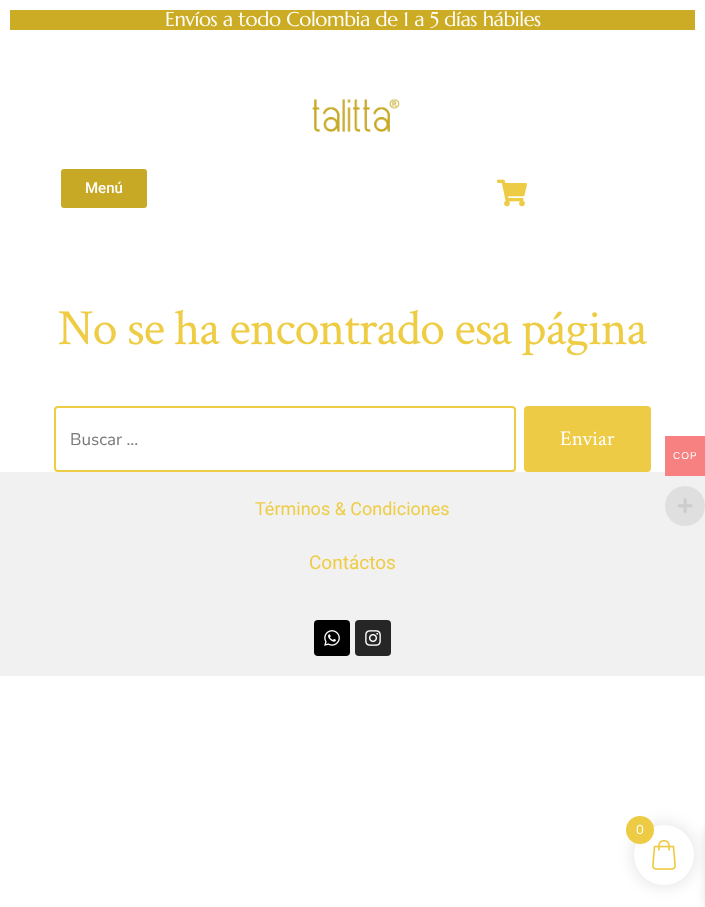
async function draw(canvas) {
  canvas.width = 705;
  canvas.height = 907;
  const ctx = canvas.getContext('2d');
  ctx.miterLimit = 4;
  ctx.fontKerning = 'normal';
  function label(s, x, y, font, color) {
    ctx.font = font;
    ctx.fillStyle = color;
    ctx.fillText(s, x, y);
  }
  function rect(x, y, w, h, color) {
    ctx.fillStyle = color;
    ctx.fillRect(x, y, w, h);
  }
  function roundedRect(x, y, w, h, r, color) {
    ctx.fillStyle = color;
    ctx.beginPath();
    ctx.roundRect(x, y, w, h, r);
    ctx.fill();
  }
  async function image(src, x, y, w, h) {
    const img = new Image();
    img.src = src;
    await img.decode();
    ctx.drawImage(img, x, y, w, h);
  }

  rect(0, 0, 705, 907, '#fff');
  rect(10, 10, 685, 20, '#ccac24');
  ctx.letterSpacing = '-0.4px';
  label('Envíos a todo Colombia de 1 a 5 días hábiles', 165, 26, '20px Marcellus', '#fffefc');
  await image('assets/img1.png', 312, 98, 88, 34);
  roundedRect(61, 169, 86, 39, 3, '#c7a926');
  ctx.letterSpacing = '0px';
  label('Menú', 85, 193, '500 15px Roboto', '#fffefc');
  await image('assets/img2.png', 497, 179, 30, 28);
  ctx.letterSpacing = '-1px';
  label('No se ha encontrado esa página', 58, 344, '50.5px Crimson Text', '#ec4');
  ctx.beginPath();
  ctx.roundRect(55, 407, 460, 64, 3);
  ctx.strokeStyle = '#ec4';
  ctx.lineWidth = 2;
  ctx.stroke();
  ctx.letterSpacing = '0px';
  label('Buscar …', 70, 445, '17px Nunito Sans', '#787878');
  roundedRect(524, 406, 127, 66, 4, '#eecb44');
  label('Enviar', 560, 445, '21px Crimson Text', '#fffefc');
  rect(0, 472, 705, 204, '#f1f1f1');
  rect(665, 436, 40, 40, '#f78080');
  ctx.letterSpacing = '1px';
  label('COP', 673, 459, '10px Liberation Sans', '#fffefc');
  ctx.fillStyle = '#dfdfdf';
  ctx.beginPath();
  ctx.arc(685, 506, 20, 0, 2 * Math.PI);
  ctx.fill();
  ctx.letterSpacing = '0px';
  label('+', 677, 515, 'bold 28px Liberation Sans', '#ccc');
  label('Términos & Condiciones', 255, 515, '18px Roboto', '#ec4');
  label('Contáctos', 309, 569, '19px Roboto', '#ec4');
  roundedRect(314, 620, 36, 36, 4, '#000');
  await image('assets/img3.png', 324, 630, 16, 16);
  roundedRect(355, 620, 36, 36, 4, '#262626');
  await image('assets/img4.png', 365, 630, 16, 16);
  ctx.fillStyle = '#0000001a';
  ctx.filter = 'blur(7.5px)';
  ctx.beginPath();
  ctx.roundRect(632, 823, 64, 64, 32);
  ctx.fill();
  ctx.filter = 'none';
  ctx.filter = 'blur(5px)';
  ctx.beginPath();
  ctx.rect(705, 829, 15, 77);
  ctx.fill();
  ctx.filter = 'none';
  ctx.fillStyle = '#fff';
  ctx.beginPath();
  ctx.arc(664, 855, 30, 0, 2 * Math.PI);
  ctx.fill();
  await image('assets/img5.png', 652, 839, 24, 31);
  ctx.fillStyle = '#eecb44';
  ctx.beginPath();
  ctx.arc(640, 830, 14, 0, 2 * Math.PI);
  ctx.fill();
  label('0', 636, 834, '13px Nunito Sans', '#fffefc');
}

draw(document.querySelector('canvas'));
